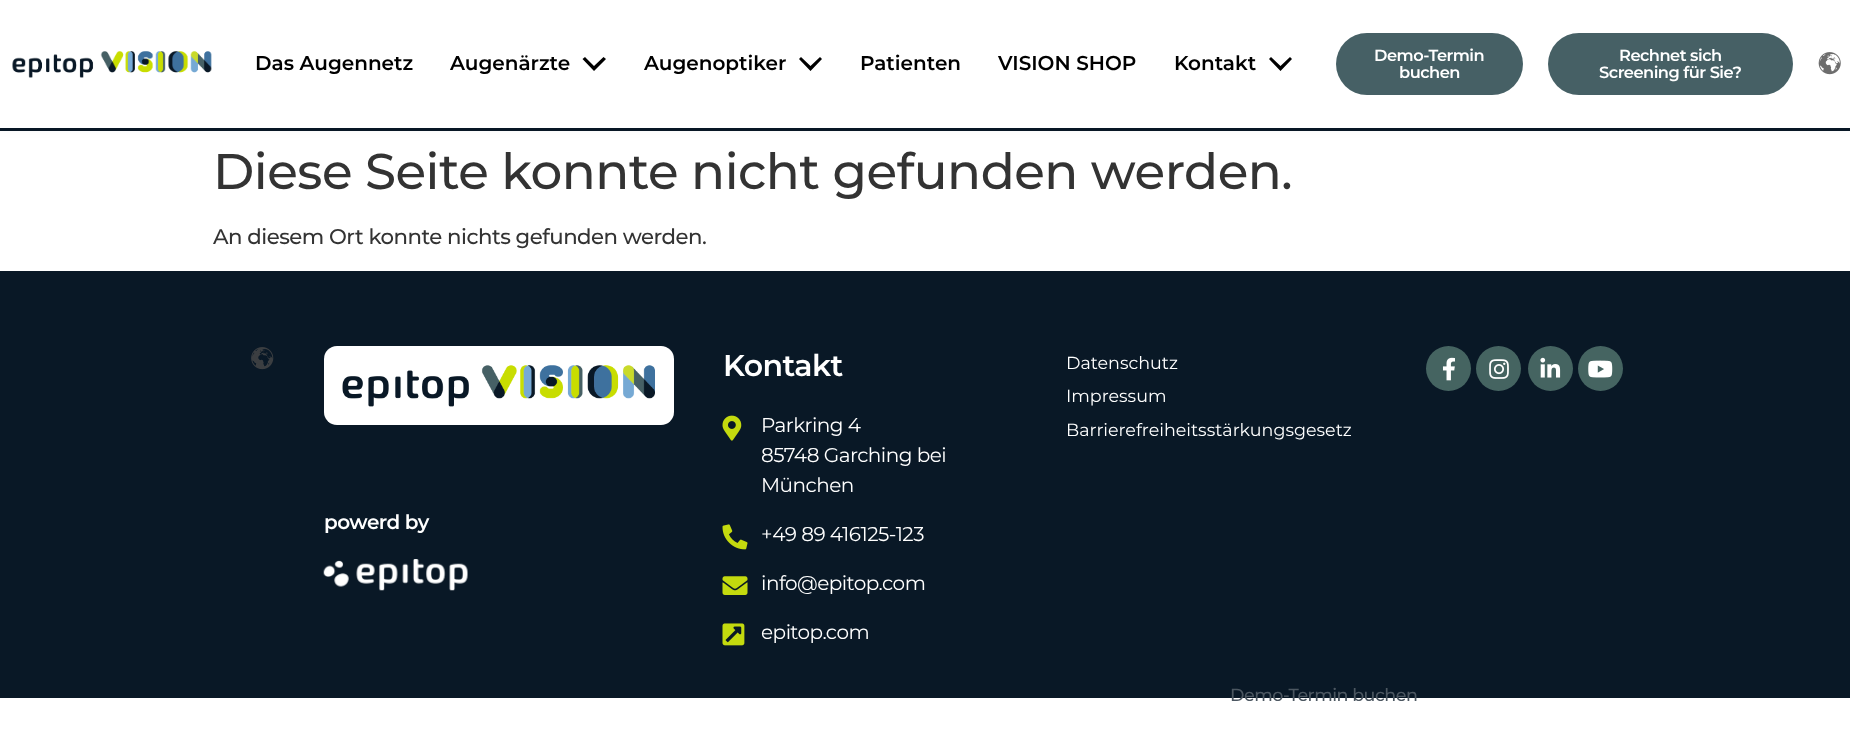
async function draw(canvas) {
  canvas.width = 1850;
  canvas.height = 730;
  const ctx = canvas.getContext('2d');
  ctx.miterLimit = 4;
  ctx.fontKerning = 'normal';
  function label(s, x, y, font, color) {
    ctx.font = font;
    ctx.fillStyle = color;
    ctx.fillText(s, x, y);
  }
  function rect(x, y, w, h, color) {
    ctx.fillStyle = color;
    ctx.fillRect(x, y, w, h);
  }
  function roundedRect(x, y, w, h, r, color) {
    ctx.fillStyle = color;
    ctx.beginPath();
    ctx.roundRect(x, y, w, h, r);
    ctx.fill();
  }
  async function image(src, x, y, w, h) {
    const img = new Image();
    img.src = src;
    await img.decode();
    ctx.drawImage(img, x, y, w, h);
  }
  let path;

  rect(0, 0, 1850, 730, '#fff');
  rect(0, 128, 1850, 3, '#091826');
  ctx.fillStyle = '#0000000d';
  ctx.filter = 'blur(6px)';
  ctx.beginPath();
  ctx.rect(0, 0, 1850, 128);
  ctx.fill();
  ctx.filter = 'none';
  rect(0, 0, 1850, 128, '#fff');
  await image('assets/img1.png', 12, 51, 200, 27);
  label('Das Augennetz', 255, 70, '600 20px Montserrat', '#000');
  label('Augenärzte', 450, 70, '600 20px Montserrat', '#000');
  path = new Path2D('M585 57L582.5 59L594 71L606 59L603.5 57L594 66Z');
  ctx.fill(path);
  label('Augenoptiker', 644, 70, '600 20px Montserrat', '#000');
  path = new Path2D('M801 57L799 59L810.5 71L822 59L820 57L810.5 66Z');
  ctx.fill(path);
  label('Patienten', 860, 70, '600 20px Montserrat', '#000');
  label('VISION SHOP', 998, 70, '600 20px Montserrat', '#000');
  label('Kontakt', 1174, 70, '600 20px Montserrat', '#000');
  path = new Path2D('M1271 57L1269 59L1280.5 71L1292 59L1290 57L1280.5 66Z');
  ctx.fill(path);
  rect(0, 271, 1850, 427, '#091826');
  ctx.letterSpacing = '-0.5px';
  label('Demo-Termin buchen', 1230, 701, '500 17.5px Montserrat', '#4c5761');
  roundedRect(1336, 33, 187, 62, 31, '#466065');
  label('Demo-Termin', 1374, 61, '600 16.25px Montserrat', '#fff');
  label('buchen', 1399, 78, '600 16.25px Montserrat', '#fff');
  roundedRect(1548, 33, 245, 62, 31, '#466065');
  label('Rechnet sich', 1619, 61, '600 16.25px Montserrat', '#fff');
  label('Screening für Sie?', 1599, 78, '600 16.25px Montserrat', '#fff');
  await image('assets/img2.png', 1818, 52, 23, 23);
  label('Diese Seite konnte nicht gefunden werden.', 213, 189, '500 50px Montserrat', '#333');
  label('An diesem Ort konnte nichts gefunden werden.', 213, 244, '500 21.25px Montserrat', '#333');
  await image('assets/img3.png', 251, 347, 23, 23);
  label('Kontakt', 723, 376, '600 30px Montserrat', '#fff');
  await image('assets/img4.png', 722, 415, 20, 26);
  label('Parkring 4', 761, 432, '20px Montserrat', '#fff');
  label('85748 Garching bei', 761, 462, '20px Montserrat', '#fff');
  label('München', 761, 492, '20px Montserrat', '#fff');
  await image('assets/img5.png', 722, 524, 26, 26);
  label('+49 89 416125-123', 761, 541, '20px Montserrat', '#fff');
  await image('assets/img6.png', 722, 576, 26, 19);
  label('info@epitop.com', 761, 590, '20px Montserrat', '#fff');
  await image('assets/img7.png', 722, 623, 23, 23);
  label('epitop.com', 761, 639, '20px Montserrat', '#fff');
  ctx.letterSpacing = '0px';
  label('Datenschutz', 1066, 369, '17.5px "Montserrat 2"', '#fff');
  label('Impressum', 1066, 402, '17.5px "Montserrat 2"', '#fff');
  label('Barrierefreiheitsstärkungsgesetz', 1066, 436, '17.5px "Montserrat 2"', '#fff');
  ctx.fillStyle = '#456461';
  ctx.beginPath();
  ctx.arc(1448.5, 368.5, 22.5, 0, 2 * Math.PI);
  ctx.fill();
  await image('assets/img8.png', 1442, 357, 13, 24);
  ctx.beginPath();
  ctx.arc(1498.5, 368.5, 22.5, 0, 2 * Math.PI);
  ctx.fill();
  await image('assets/img9.png', 1489, 359, 20, 20);
  ctx.beginPath();
  ctx.arc(1550.5, 368.5, 22.5, 0, 2 * Math.PI);
  ctx.fill();
  await image('assets/img10.png', 1540, 357, 21, 21);
  ctx.beginPath();
  ctx.arc(1600.5, 368.5, 22.5, 0, 2 * Math.PI);
  ctx.fill();
  await image('assets/img11.png', 1588, 360, 25, 18);
  roundedRect(324, 346, 350, 79, 13, '#fff');
  await image('assets/img12.png', 342, 365, 313, 42);
  ctx.letterSpacing = '-0.5px';
  label('powerd by', 324, 529, '600 20px Montserrat', '#fff');
  await image('assets/img13.png', 323, 559, 145, 32);
}

draw(document.querySelector('canvas'));
